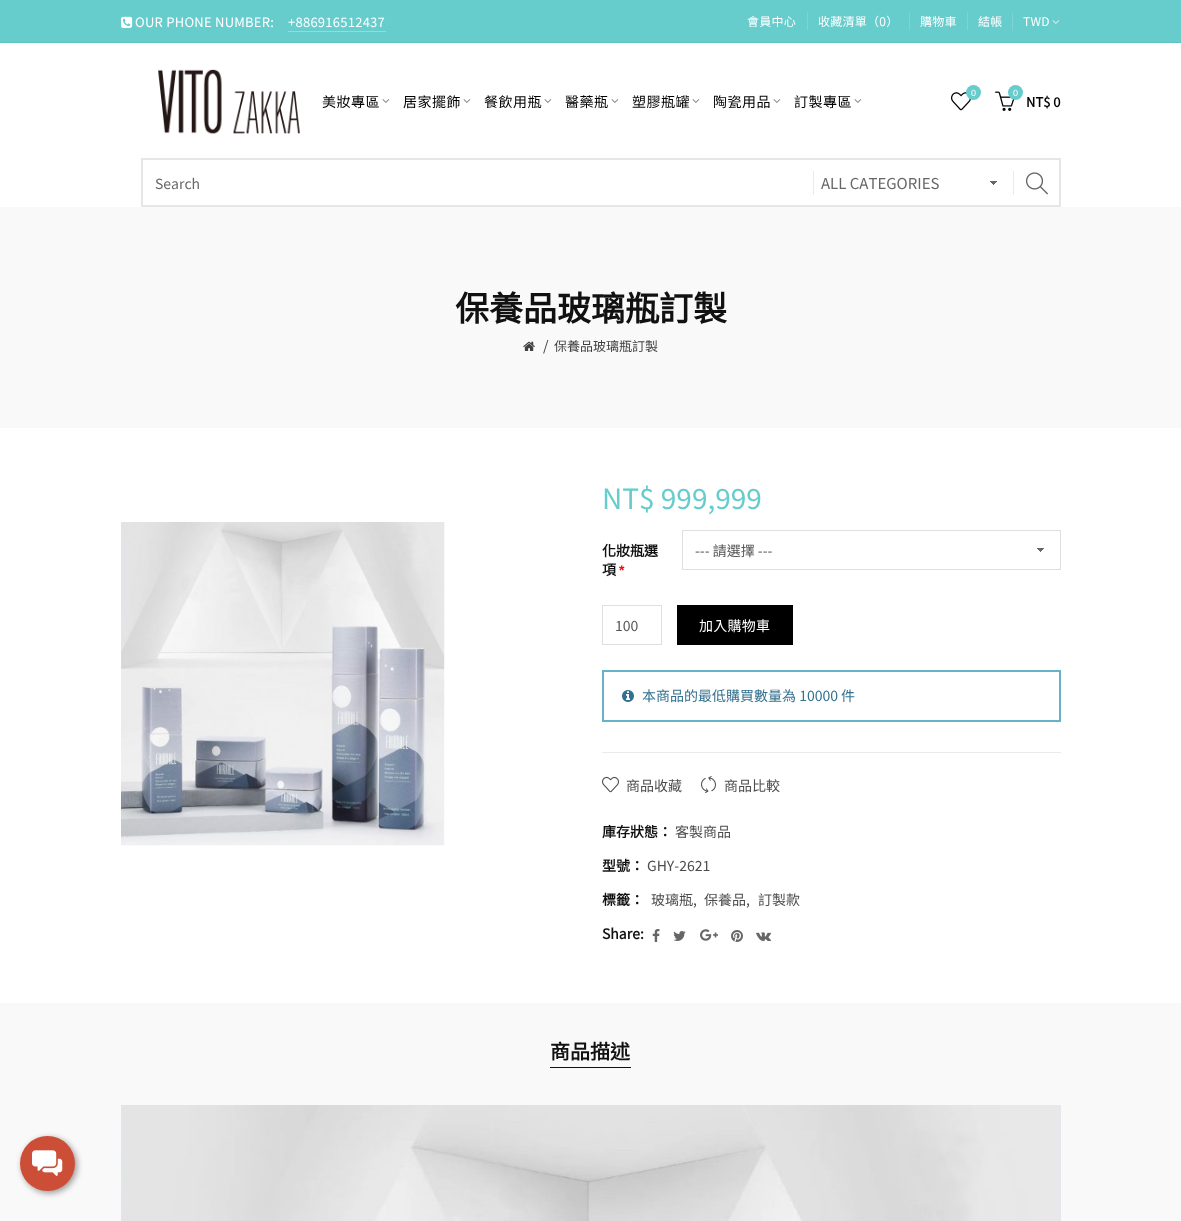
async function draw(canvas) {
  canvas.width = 1181;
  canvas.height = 1221;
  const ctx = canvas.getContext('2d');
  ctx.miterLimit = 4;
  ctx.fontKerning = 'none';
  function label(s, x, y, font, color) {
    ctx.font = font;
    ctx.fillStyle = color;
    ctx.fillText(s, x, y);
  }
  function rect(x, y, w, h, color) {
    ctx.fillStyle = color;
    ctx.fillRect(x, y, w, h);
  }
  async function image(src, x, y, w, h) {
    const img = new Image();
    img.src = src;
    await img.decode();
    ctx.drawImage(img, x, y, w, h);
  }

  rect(0, 0, 1181, 1221, '#fff');
  rect(0, 0, 1181, 42, '#6cc');
  await image('assets/img1.png', 121, 16, 12, 12);
  ctx.letterSpacing = '0.25px';
  label('OUR PHONE NUMBER:', 135, 27, '100 13px Noto Sans TC', '#fff');
  label('+886916512437', 288, 27, '100 13px Noto Sans TC', '#fff');
  rect(288, 31, 98, 1, '#94dbdb');
  label('會員中心', 747, 26, '100 12px Noto Sans TC', '#fff');
  rect(807, 12, 1, 18, '#7dd4d4');
  label('收藏清單（0）', 818, 26, '100 12px Noto Sans TC', '#fff');
  rect(909, 12, 1, 18, '#7dd4d4');
  label('購物車', 920, 26, '100 12px Noto Sans TC', '#fff');
  rect(967, 12, 1, 18, '#7dd4d4');
  label('結帳', 978, 26, '100 12px Noto Sans TC', '#fff');
  rect(1012, 13, 1, 18, '#7dd4d4');
  label('TWD', 1023, 26, '100 12px Noto Sans TC', '#fff');
  await image('assets/img2.png', 1052, 20, 8, 4);
  rect(0, 42, 1181, 1, '#61c2c2');
  await image('assets/img3.png', 158, 69, 142, 65);
  ctx.letterSpacing = '0.5px';
  label('美妝專區', 322, 107, '100 14px Noto Sans TC', '#000');
  await image('assets/img4.png', 382, 99, 8, 4);
  label('居家擺飾', 403, 107, '100 14px Noto Sans TC', '#000');
  await image('assets/img4.png', 463, 99, 8, 4);
  label('餐飲用瓶', 484, 107, '100 14px Noto Sans TC', '#000');
  await image('assets/img4.png', 544, 99, 8, 4);
  label('醫藥瓶', 565, 107, '100 14px Noto Sans TC', '#000');
  await image('assets/img4.png', 611, 99, 8, 4);
  label('塑膠瓶罐', 632, 107, '100 14px Noto Sans TC', '#000');
  await image('assets/img4.png', 692, 99, 8, 4);
  label('陶瓷用品', 713, 107, '100 14px Noto Sans TC', '#000');
  await image('assets/img4.png', 773, 99, 8, 4);
  label('訂製專區', 794, 107, '100 14px Noto Sans TC', '#000');
  await image('assets/img4.png', 854, 99, 8, 4);
  await image('assets/img5.png', 951, 92, 20, 19);
  ctx.fillStyle = '#6cc';
  ctx.beginPath();
  ctx.arc(973.5, 92.5, 7.5, 0, 2 * Math.PI);
  ctx.fill();
  ctx.letterSpacing = '0px';
  label('0', 971, 96, '9px Liberation Sans', '#fff');
  await image('assets/img6.png', 995, 91, 20, 20);
  ctx.fillStyle = '#6cc';
  ctx.beginPath();
  ctx.arc(1015.5, 92.5, 7.5, 0, 2 * Math.PI);
  ctx.fill();
  label('0', 1013, 96, '9px Liberation Sans', '#fff');
  label('NT$ 0', 1026, 107, 'bold 13px Noto Sans TC', '#000');
  ctx.strokeStyle = '#e6e6e6';
  ctx.lineWidth = 2;
  ctx.strokeRect(142, 159, 918, 47);
  label('Search', 155, 189, '100 14px Noto Sans TC', '#666');
  rect(813, 171, 1, 24, '#ebebeb');
  await image('assets/img7.png', 990, 181, 7, 4);
  label('ALL CATEGORIES', 821, 189, '100 15px Noto Sans TC', '#666');
  rect(1013, 171, 1, 24, '#ebebeb');
  await image('assets/img8.png', 1026, 172, 22, 23);
  rect(0, 207, 1181, 221, '#f9f9f9');
  label('保養品玻璃瓶訂製', 455, 321, 'bold 34px Noto Sans TC', '#111');
  await image('assets/img9.png', 523, 341, 12, 10);
  label('/', 543, 351, '100 14px Noto Sans TC', '#3f3f3f');
  label('保養品玻璃瓶訂製', 554, 351, '100 13px Noto Sans TC', '#3f3f3f');
  await image('assets/img10.png', 121, 522, 324, 324);
  label('NT$ 999,999', 602, 509, '100 28px Noto Sans TC', '#6cc');
  rect(602, 752, 459, 1, '#eaeaea');
  label('化妝瓶選', 602, 556, 'bold 14px Noto Sans TC', '#111');
  label('項', 602, 575, 'bold 14px Noto Sans TC', '#111');
  label('*', 619, 575, 'bold 14px Liberation Sans', '#f00');
  await image('assets/img7.png', 1037, 548, 7, 4);
  ctx.strokeStyle = '#dfdfdf';
  ctx.lineWidth = 1;
  ctx.strokeRect(682.5, 530.5, 378, 39);
  label('--- 請選擇 ---', 695, 556, '100 14px Noto Sans TC', '#555');
  ctx.strokeRect(602.5, 605.5, 59, 39);
  label('100', 615, 631, '100 14px Noto Sans TC', '#555');
  rect(677, 605, 116, 40, '#000');
  ctx.letterSpacing = '0.25px';
  label('加入購物車', 699, 631, '100 14px Noto Sans TC', '#fff');
  ctx.strokeStyle = '#65b3c7';
  ctx.lineWidth = 2;
  ctx.strokeRect(603, 671, 457, 50);
  await image('assets/img11.png', 622, 690, 12, 12);
  ctx.letterSpacing = '0px';
  label('本商品的最低購買數量為 10000 件', 642, 701, '100 14px Noto Sans TC', '#31708f');
  await image('assets/img12.png', 602, 776, 17, 17);
  label('商品收藏', 626, 791, '100 14px Noto Sans TC', '#4c4c4c');
  await image('assets/img13.png', 701, 776, 15, 17);
  label('商品比較', 724, 791, '100 14px Noto Sans TC', '#4c4c4c');
  label('庫存狀態：', 602, 837, 'bold 14px Noto Sans TC', '#111');
  label('客製商品', 675, 837, '100 14px Noto Sans TC', '#4c4c4c');
  label('型號：', 602, 871, 'bold 14px Noto Sans TC', '#111');
  label('GHY-2621', 647, 871, '100 14px Noto Sans TC', '#4c4c4c');
  label('標籤：', 602, 905, 'bold 14px Noto Sans TC', '#111');
  label('玻璃瓶,', 651, 905, '100 14px Noto Sans TC', '#4c4c4c');
  label('保養品,', 704, 905, '100 14px Noto Sans TC', '#4c4c4c');
  label('訂製款', 758, 905, '100 14px Noto Sans TC', '#4c4c4c');
  label('Share:', 602, 939, 'bold 14px Noto Sans TC', '#111');
  await image('assets/img14.png', 652, 929, 8, 13);
  await image('assets/img15.png', 673, 931, 13, 10);
  await image('assets/img16.png', 700, 929, 18, 12);
  await image('assets/img17.png', 731, 930, 12, 12);
  await image('assets/img18.png', 756, 932, 15, 9);
  rect(0, 1003, 1181, 218, '#f9f9f9');
  label('商品描述', 550, 1059, 'bold 20px Noto Sans TC', '#111');
  rect(550, 1067, 81, 1, '#111');
  await image('assets/img19.png', 121, 1105, 940, 116);
  ctx.fillStyle = '#00000066';
  ctx.filter = 'blur(3px)';
  ctx.beginPath();
  ctx.roundRect(22, 1138, 55, 55, 27.5);
  ctx.fill();
  ctx.filter = 'none';
  ctx.fillStyle = '#cd4e37';
  ctx.beginPath();
  ctx.arc(47.5, 1163.5, 27.5, 0, 2 * Math.PI);
  ctx.fill();
  await image('assets/img20.png', 32, 1150, 31, 26);
}

draw(document.querySelector('canvas'));
